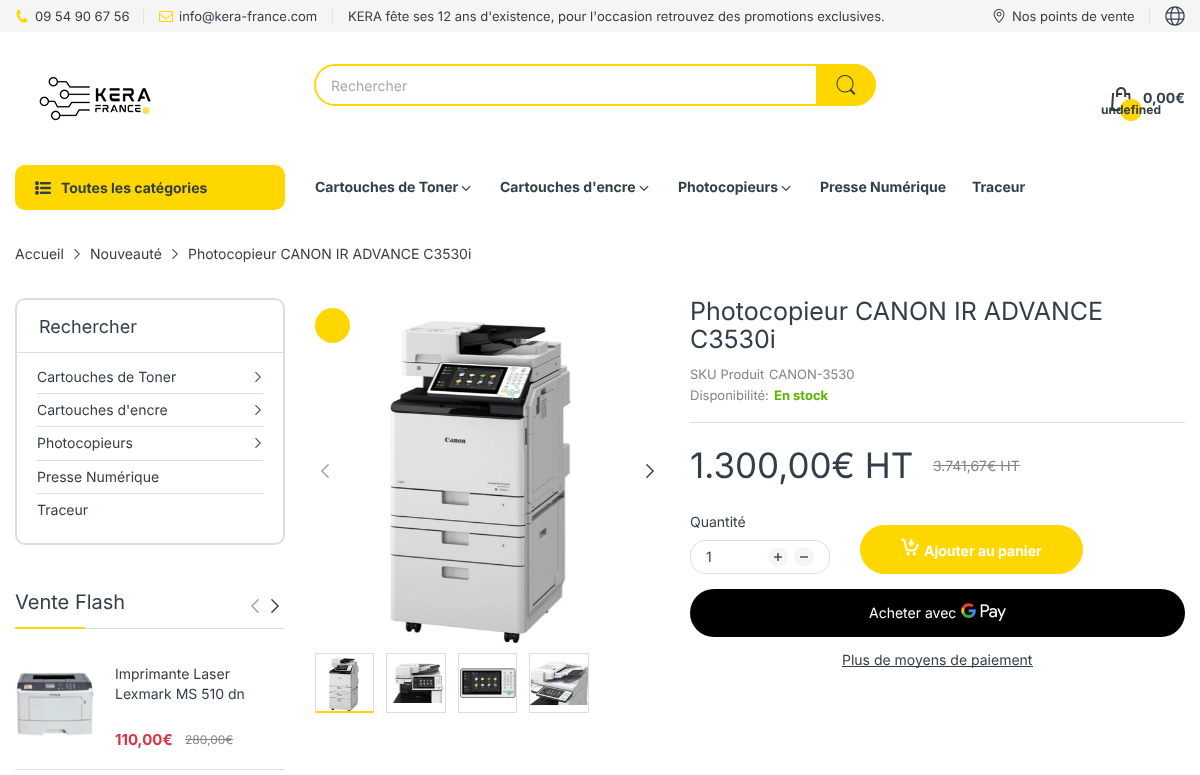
async function draw(canvas) {
  canvas.width = 1200;
  canvas.height = 775;
  const ctx = canvas.getContext('2d');
  ctx.miterLimit = 4;
  ctx.fontKerning = 'normal';
  function label(s, x, y, font, color) {
    ctx.font = font;
    ctx.fillStyle = color;
    ctx.fillText(s, x, y);
  }
  function rect(x, y, w, h, color) {
    ctx.fillStyle = color;
    ctx.fillRect(x, y, w, h);
  }
  function roundedRect(x, y, w, h, r, color) {
    ctx.fillStyle = color;
    ctx.beginPath();
    ctx.roundRect(x, y, w, h, r);
    ctx.fill();
  }
  async function image(src, x, y, w, h) {
    const img = new Image();
    img.src = src;
    await img.decode();
    ctx.drawImage(img, x, y, w, h);
  }

  rect(0, 0, 1200, 775, '#fff');
  rect(0, 0, 1200, 32, '#f5f5f5');
  await image('assets/img1.png', 16, 9, 12, 14);
  label('09 54 90 67 56', 35, 21, '13px Inter', '#333e48');
  rect(143, 9, 1, 15, '#e2e3e4');
  await image('assets/img2.png', 159, 11, 14, 11);
  label('info@kera-france.com', 179, 21, '13px Inter', '#333e48');
  rect(332, 9, 1, 15, '#e2e3e4');
  label('KERA fête ses 12 ans d\'existence, pour l\'occasion retrouvez des promotions exclusives.', 348, 21, '13px Inter', '#333e48');
  await image('assets/img3.png', 993, 9, 12, 14);
  label('Nos points de vente', 1012, 21, '13px Inter', '#333e48');
  rect(1149, 9, 1, 15, '#e2e3e4');
  await image('assets/img4.png', 1165, 6, 20, 20);
  await image('assets/img5.png', 39, 76, 112, 45);
  ctx.beginPath();
  ctx.roundRect(315, 65, 559, 40, 20);
  ctx.strokeStyle = '#fed700';
  ctx.lineWidth = 2;
  ctx.stroke();
  roundedRect(316, 66, 557, 38, 19, '#fff');
  label('Rechercher', 331, 91, '14px Inter', '#a9a9a9');
  ctx.fillStyle = '#fed700';
  ctx.beginPath();
  ctx.roundRect(816.5, 64.5, 59, 41, [0, 20.5, 20.5, 0]);
  ctx.fill();
  ctx.lineWidth = 1;
  ctx.stroke();
  await image('assets/img6.png', 836, 75, 20, 20);
  label('0,00€', 1143, 103, 'bold 14px Inter', '#333e48');
  await image('assets/img7.png', 1110, 87, 21, 24);
  ctx.fillStyle = '#fed700';
  ctx.beginPath();
  ctx.arc(1131, 110, 11, 0, 2 * Math.PI);
  ctx.fill();
  label('undefined', 1101, 114, 'bold 12px Inter', '#333e48');
  roundedRect(15, 165, 270, 45, 10, '#fed700');
  await image('assets/img8.png', 35, 181, 16, 14);
  label('Toutes les catégories', 61, 193, 'bold 14px Inter', '#333e48');
  label('Cartouches de Toner', 315, 192, 'bold 14px Inter', '#333e48');
  await image('assets/img9.png', 461, 185, 10, 6);
  label('Cartouches d\'encre', 500, 192, 'bold 14px Inter', '#333e48');
  await image('assets/img9.png', 639, 185, 10, 6);
  label('Photocopieurs', 678, 192, 'bold 14px Inter', '#333e48');
  await image('assets/img9.png', 781, 185, 10, 6);
  label('Presse Numérique', 820, 192, 'bold 14px Inter', '#333e48');
  label('Traceur', 972, 192, 'bold 14px Inter', '#333e48');
  label('Accueil', 15, 259, '14px Inter', '#333e48');
  await image('assets/img10.png', 74, 249, 6, 10);
  label('Nouveauté', 90, 259, '14px Inter', '#333e48');
  await image('assets/img10.png', 172, 249, 6, 10);
  label('Photocopieur CANON IR ADVANCE C3530i', 188, 259, '14px Inter', '#333e48');
  ctx.beginPath();
  ctx.roundRect(16, 299, 268, 245, 9);
  ctx.strokeStyle = '#ddd';
  ctx.lineWidth = 2;
  ctx.stroke();
  rect(17, 352, 266, 1, '#ddd');
  label('Rechercher', 39, 333, '18px Inter', '#333e48');
  rect(37, 393, 226, 1, '#ddd');
  label('Cartouches de Toner', 37, 382, '14px Inter', '#333e48');
  await image('assets/img10.png', 255, 372, 6, 10);
  rect(37, 426, 226, 1, '#ddd');
  label('Cartouches d\'encre', 37, 415, '14px Inter', '#333e48');
  await image('assets/img10.png', 255, 405, 6, 10);
  rect(37, 460, 226, 1, '#ddd');
  label('Photocopieurs', 37, 448, '14px Inter', '#333e48');
  await image('assets/img10.png', 255, 438, 6, 10);
  rect(37, 493, 226, 1, '#ddd');
  label('Presse Numérique', 37, 482, '14px Inter', '#333e48');
  label('Traceur', 37, 515, '14px Inter', '#333e48');
  rect(85, 628, 200, 1, '#ddd');
  label('Vente Flash', 15, 609, '20px Inter', '#333e48');
  rect(15, 627, 70, 2, '#fed700');
  await image('assets/img11.png', 251, 599, 8, 14);
  await image('assets/img12.png', 271, 599, 8, 14);
  rect(15, 769, 270, 1, '#ddd');
  await image('assets/img13.png', 15, 671, 80, 66);
  label('Imprimante Laser', 115, 679, '14px Inter', '#333e48');
  label('Lexmark MS 510 dn', 115, 699, '14px Inter', '#333e48');
  label('110,00€', 115, 745, 'bold 15px Inter', '#dc3545');
  label('280,00€', 185, 744, '12px Inter', '#848484');
  rect(185, 739, 48, 1, '#848484');
  ctx.fillStyle = '#fed700';
  ctx.beginPath();
  ctx.arc(332.5, 325.5, 17.5, 0, 2 * Math.PI);
  ctx.fill();
  await image('assets/img14.png', 389, 321, 182, 322);
  await image('assets/img11.png', 321, 464, 8, 14);
  await image('assets/img12.png', 646, 464, 8, 14);
  ctx.lineWidth = 1;
  ctx.strokeRect(315.5, 653.5, 58, 59);
  await image('assets/img15.png', 329, 657, 30, 54);
  rect(316, 711, 57, 2, '#fed700');
  ctx.strokeRect(386.5, 653.5, 59, 59);
  await image('assets/img16.png', 392, 663, 51, 40);
  ctx.strokeRect(458.5, 653.5, 58, 59);
  await image('assets/img17.png', 459, 668, 57, 31);
  ctx.strokeRect(529.5, 653.5, 59, 59);
  await image('assets/img18.png', 530, 661, 58, 45);
  rect(690, 422, 495, 1, '#ddd');
  label('Photocopieur CANON IR ADVANCE', 690, 320, '25px Inter', '#333e48');
  label('C3530i', 690, 348, '25px Inter', '#333e48');
  label('SKU Produit', 690, 379, '13px Inter', '#848484');
  label('CANON-3530', 769, 379, '13px Inter', '#848484');
  label('Disponibilité:', 690, 400, '13px Inter', '#848484');
  label('En stock', 774, 400, 'bold 13px Inter', '#5bb300');
  label('1.300,00€ HT', 690, 478, '35px Inter', '#333e48');
  label('3.741,67€ HT', 933, 471, '14px Inter', '#848484');
  rect(933, 465, 87, 1, '#848484');
  label('Quantité', 690, 527, '14px Inter', '#333e48');
  ctx.beginPath();
  ctx.roundRect(690.5, 540.5, 139, 33, 14.5);
  ctx.stroke();
  label('1', 706, 562, '14px Inter', '#333e48');
  ctx.fillStyle = '#f5f5f5';
  ctx.beginPath();
  ctx.arc(778, 557, 10, 0, 2 * Math.PI);
  ctx.fill();
  await image('assets/img19.png', 774, 553, 8, 8);
  ctx.beginPath();
  ctx.arc(804, 557, 10, 0, 2 * Math.PI);
  ctx.fill();
  await image('assets/img20.png', 800, 556, 8, 2);
  ctx.fillStyle = '#fed700';
  ctx.beginPath();
  ctx.roundRect(860.5, 525.5, 222, 48, 24);
  ctx.fill();
  ctx.strokeStyle = '#fed700';
  ctx.stroke();
  await image('assets/img21.png', 901, 538, 18, 18);
  label('Ajouter au panier', 924, 556, 'bold 14px Inter', '#fff');
  roundedRect(690, 589, 495, 48, 24, '#000');
  label('Acheter avec', 869, 618, '14px Inter', '#fff');
  await image('assets/img22.png', 961, 603, 45, 18);
  rect(842, 666, 191, 1, '#333e48');
  label('Plus de moyens de paiement', 842, 665, '14px Inter', '#333e48');
}

draw(document.querySelector('canvas'));
